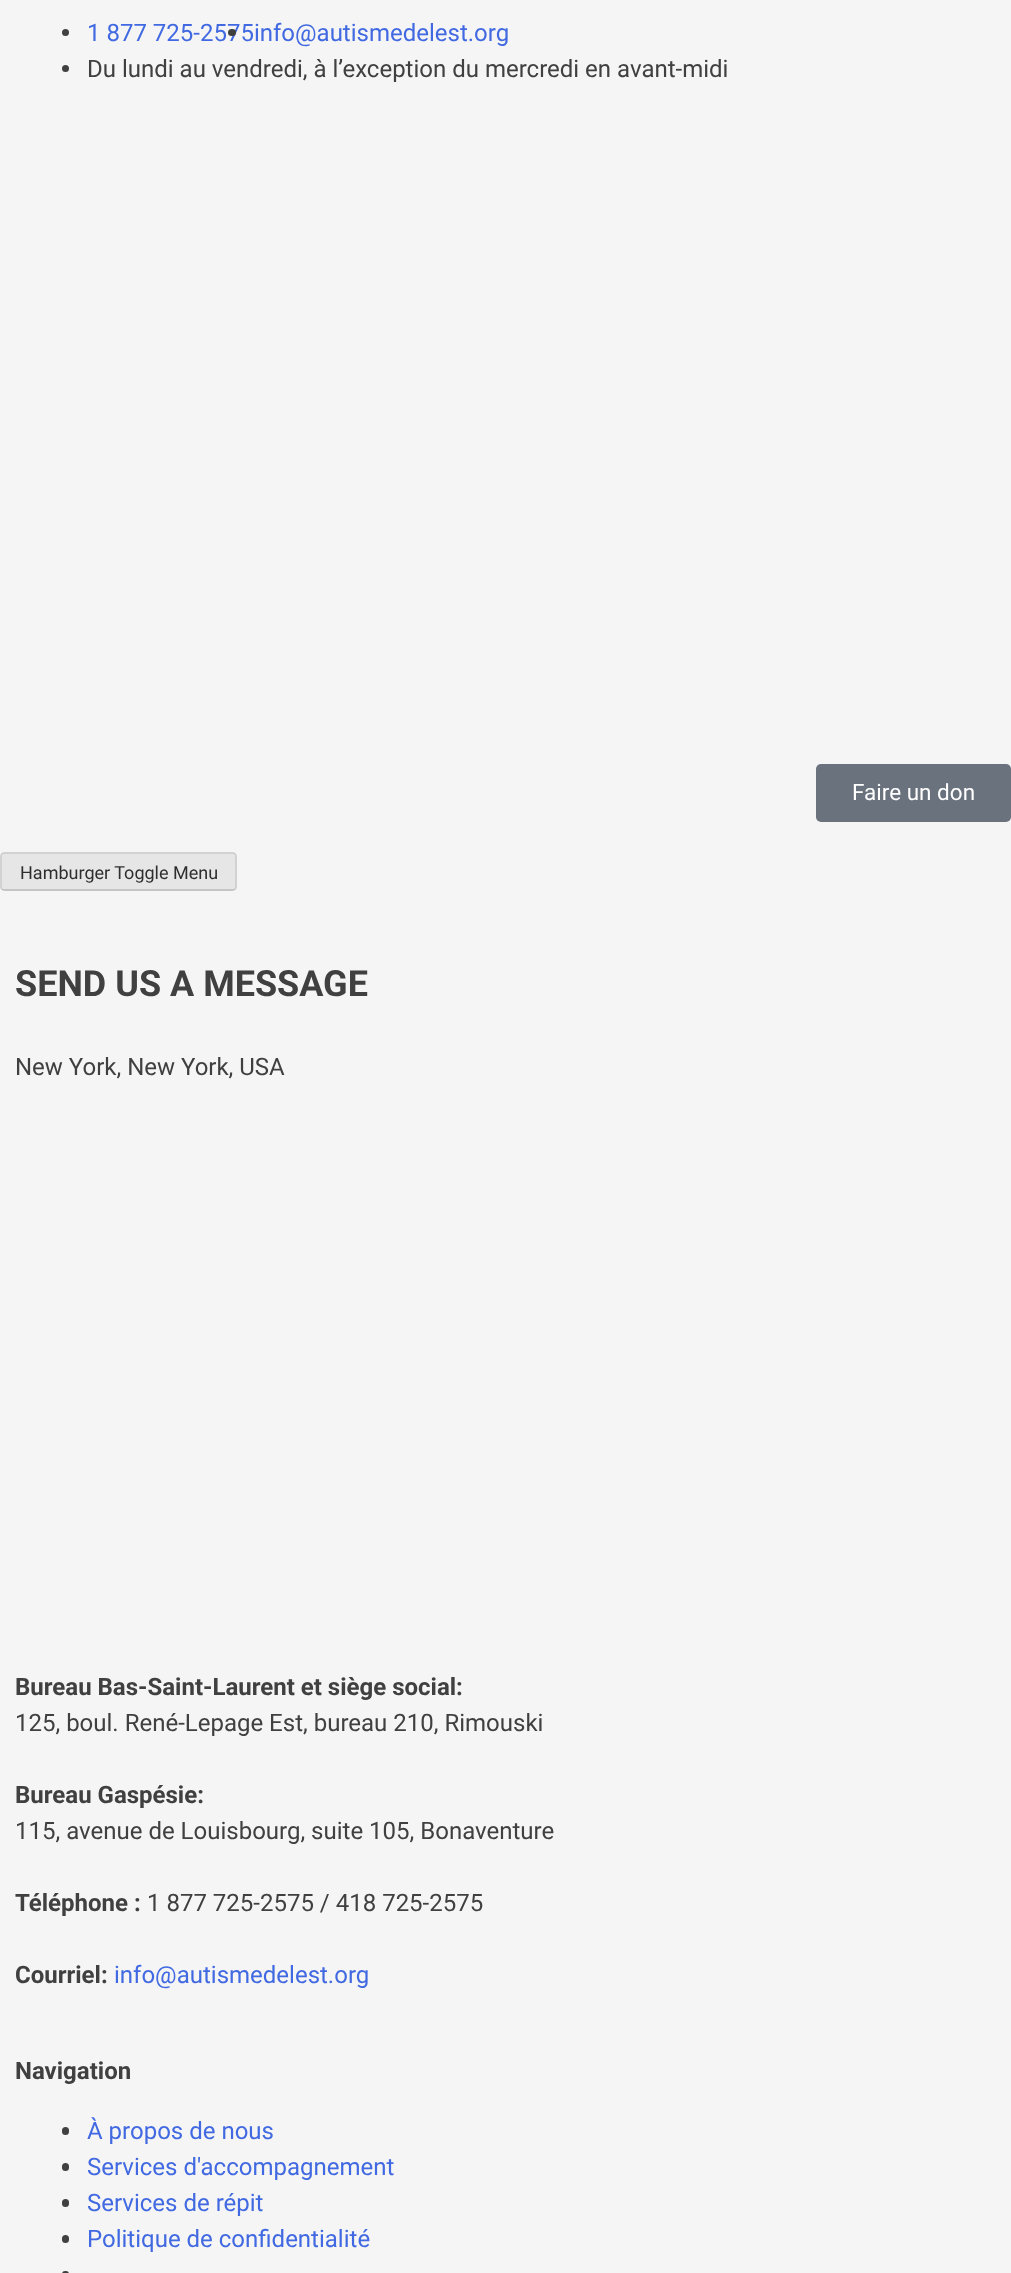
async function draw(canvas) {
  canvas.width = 1011;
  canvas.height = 2273;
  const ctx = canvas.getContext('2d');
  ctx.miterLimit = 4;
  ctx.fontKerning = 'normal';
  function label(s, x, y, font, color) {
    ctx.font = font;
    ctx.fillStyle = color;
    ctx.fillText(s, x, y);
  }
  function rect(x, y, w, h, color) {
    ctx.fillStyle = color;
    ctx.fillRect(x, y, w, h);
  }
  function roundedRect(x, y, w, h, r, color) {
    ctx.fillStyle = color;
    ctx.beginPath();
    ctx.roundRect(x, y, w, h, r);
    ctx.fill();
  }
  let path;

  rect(0, 0, 1011, 2273, '#f5f5f5');
  ctx.fillStyle = '#404040';
  ctx.beginPath();
  ctx.arc(65.5, 32.5, 3.5, 0, 2 * Math.PI);
  ctx.fill();
  label('1 877 725-2575info@autismedelest.org', 87, 41, '24px Roboto', '#4169e1');
  roundedRect(228, 29, 8, 7, 3.5, '#404040');
  ctx.beginPath();
  ctx.arc(65.5, 68.5, 3.5, 0, 2 * Math.PI);
  ctx.fill();
  label('Du lundi au vendredi, à l’exception du mercredi en avant-midi', 87, 77, '24px Roboto', '#404040');
  roundedRect(816, 764, 195, 58, 5, '#69727d');
  label('Faire un don', 852, 800, '22.5px Roboto', '#fff');
  roundedRect(0, 852, 237, 39, 5, '#e6e6e6');
  path = new Path2D('M235 889C234.5 890 233.5 890 232.5 890H4.5C3.5 890 2.5 890 2 889');
  ctx.strokeStyle = '#bbb';
  ctx.lineWidth = 1.5;
  ctx.stroke(path);
  path = new Path2D('M2 889C1 888.5 1 887.5 1 886.5V856.5C1 855.5 1 854.5 2 854C2.5 853 3.5 853 4.5 853H232.5C233.5 853 234.5 853 235 854C236 854.5 236 855.5 236 856.5V886.5C236 887.5 236 888.5 235 889');
  ctx.strokeStyle = '#ccc';
  ctx.stroke(path);
  label('Hamburger Toggle Menu', 20, 879, '18px Roboto', '#2e2e2e');
  label('SEND US A MESSAGE', 15, 996, 'bold 36px Roboto', '#404040');
  label('New York, New York, USA', 15, 1075, '24px Roboto', '#404040');
  label('Bureau Bas-Saint-Laurent et siège social:', 15, 1695, 'bold 24px Roboto', '#404040');
  label('125, boul. René-Lepage Est, bureau 210, Rimouski', 15, 1731, '24px Roboto', '#404040');
  label('Bureau Gaspésie:', 15, 1803, 'bold 24px Roboto', '#404040');
  label('115, avenue de Louisbourg, suite 105, Bonaventure', 15, 1839, '24px Roboto', '#404040');
  label('Téléphone :', 15, 1911, 'bold 24px Roboto', '#404040');
  label('1 877 725-2575 / 418 725-2575', 147, 1911, '24px Roboto', '#404040');
  label('Courriel:', 15, 1983, 'bold 24px Roboto', '#404040');
  label('info@autismedelest.org', 114, 1983, '24px Roboto', '#4169e1');
  label('Navigation', 15, 2079, 'bold 24px Roboto', '#404040');
  roundedRect(62, 2127, 7, 8, 3.5, '#404040');
  label('À propos de nous', 87, 2139, '24px Roboto', '#4169e1');
  roundedRect(62, 2163, 7, 8, 3.5, '#404040');
  label('Services d\'accompagnement', 87, 2175, '24px Roboto', '#4169e1');
  roundedRect(62, 2199, 7, 8, 3.5, '#404040');
  label('Services de répit', 87, 2211, '24px Roboto', '#4169e1');
  roundedRect(62, 2235, 7, 8, 3.5, '#404040');
  label('Politique de confidentialité', 87, 2247, '24px Roboto', '#4169e1');
  roundedRect(62, 2271, 7, 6, 3.5, '#404040');
}

draw(document.querySelector('canvas'));
